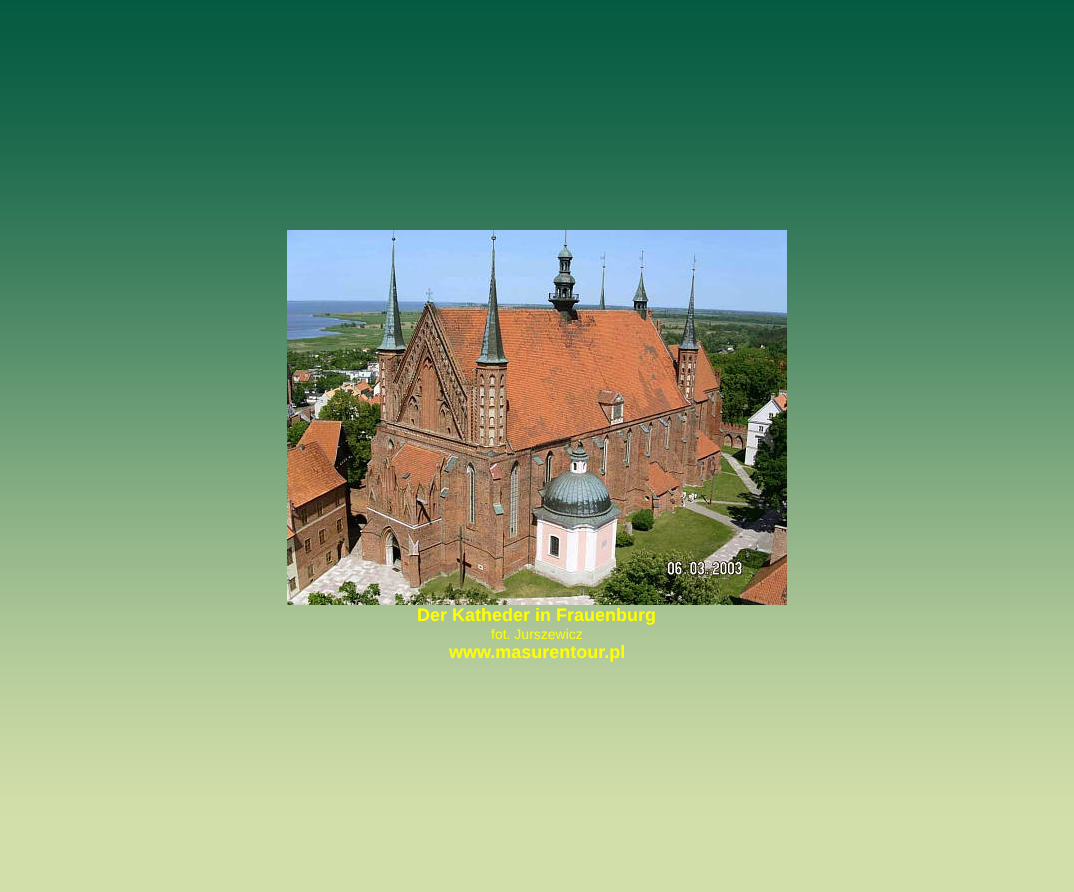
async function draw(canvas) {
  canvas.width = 1074;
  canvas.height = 892;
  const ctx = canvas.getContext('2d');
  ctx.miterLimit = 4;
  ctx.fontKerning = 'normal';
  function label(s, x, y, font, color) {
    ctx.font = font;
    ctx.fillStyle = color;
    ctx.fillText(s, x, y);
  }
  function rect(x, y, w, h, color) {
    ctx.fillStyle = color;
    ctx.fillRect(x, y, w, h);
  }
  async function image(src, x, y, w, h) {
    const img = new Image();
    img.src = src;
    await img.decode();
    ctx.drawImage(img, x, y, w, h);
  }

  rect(0, 0, 1074, 892, '#fff');
  await image('assets/img1.png', 0, 0, 1074, 892);
  await image('assets/img2.png', 287, 230, 500, 375);
  label('Der Katheder in Frauenburg', 417, 621, 'bold 18px Liberation Sans', '#ff0');
  label('fot. Jurszewicz', 491, 639, '14px Liberation Sans', '#ff0');
  label('www.masurentour.pl', 449, 658, 'bold 18px Liberation Sans', '#ff0');
}

draw(document.querySelector('canvas'));
